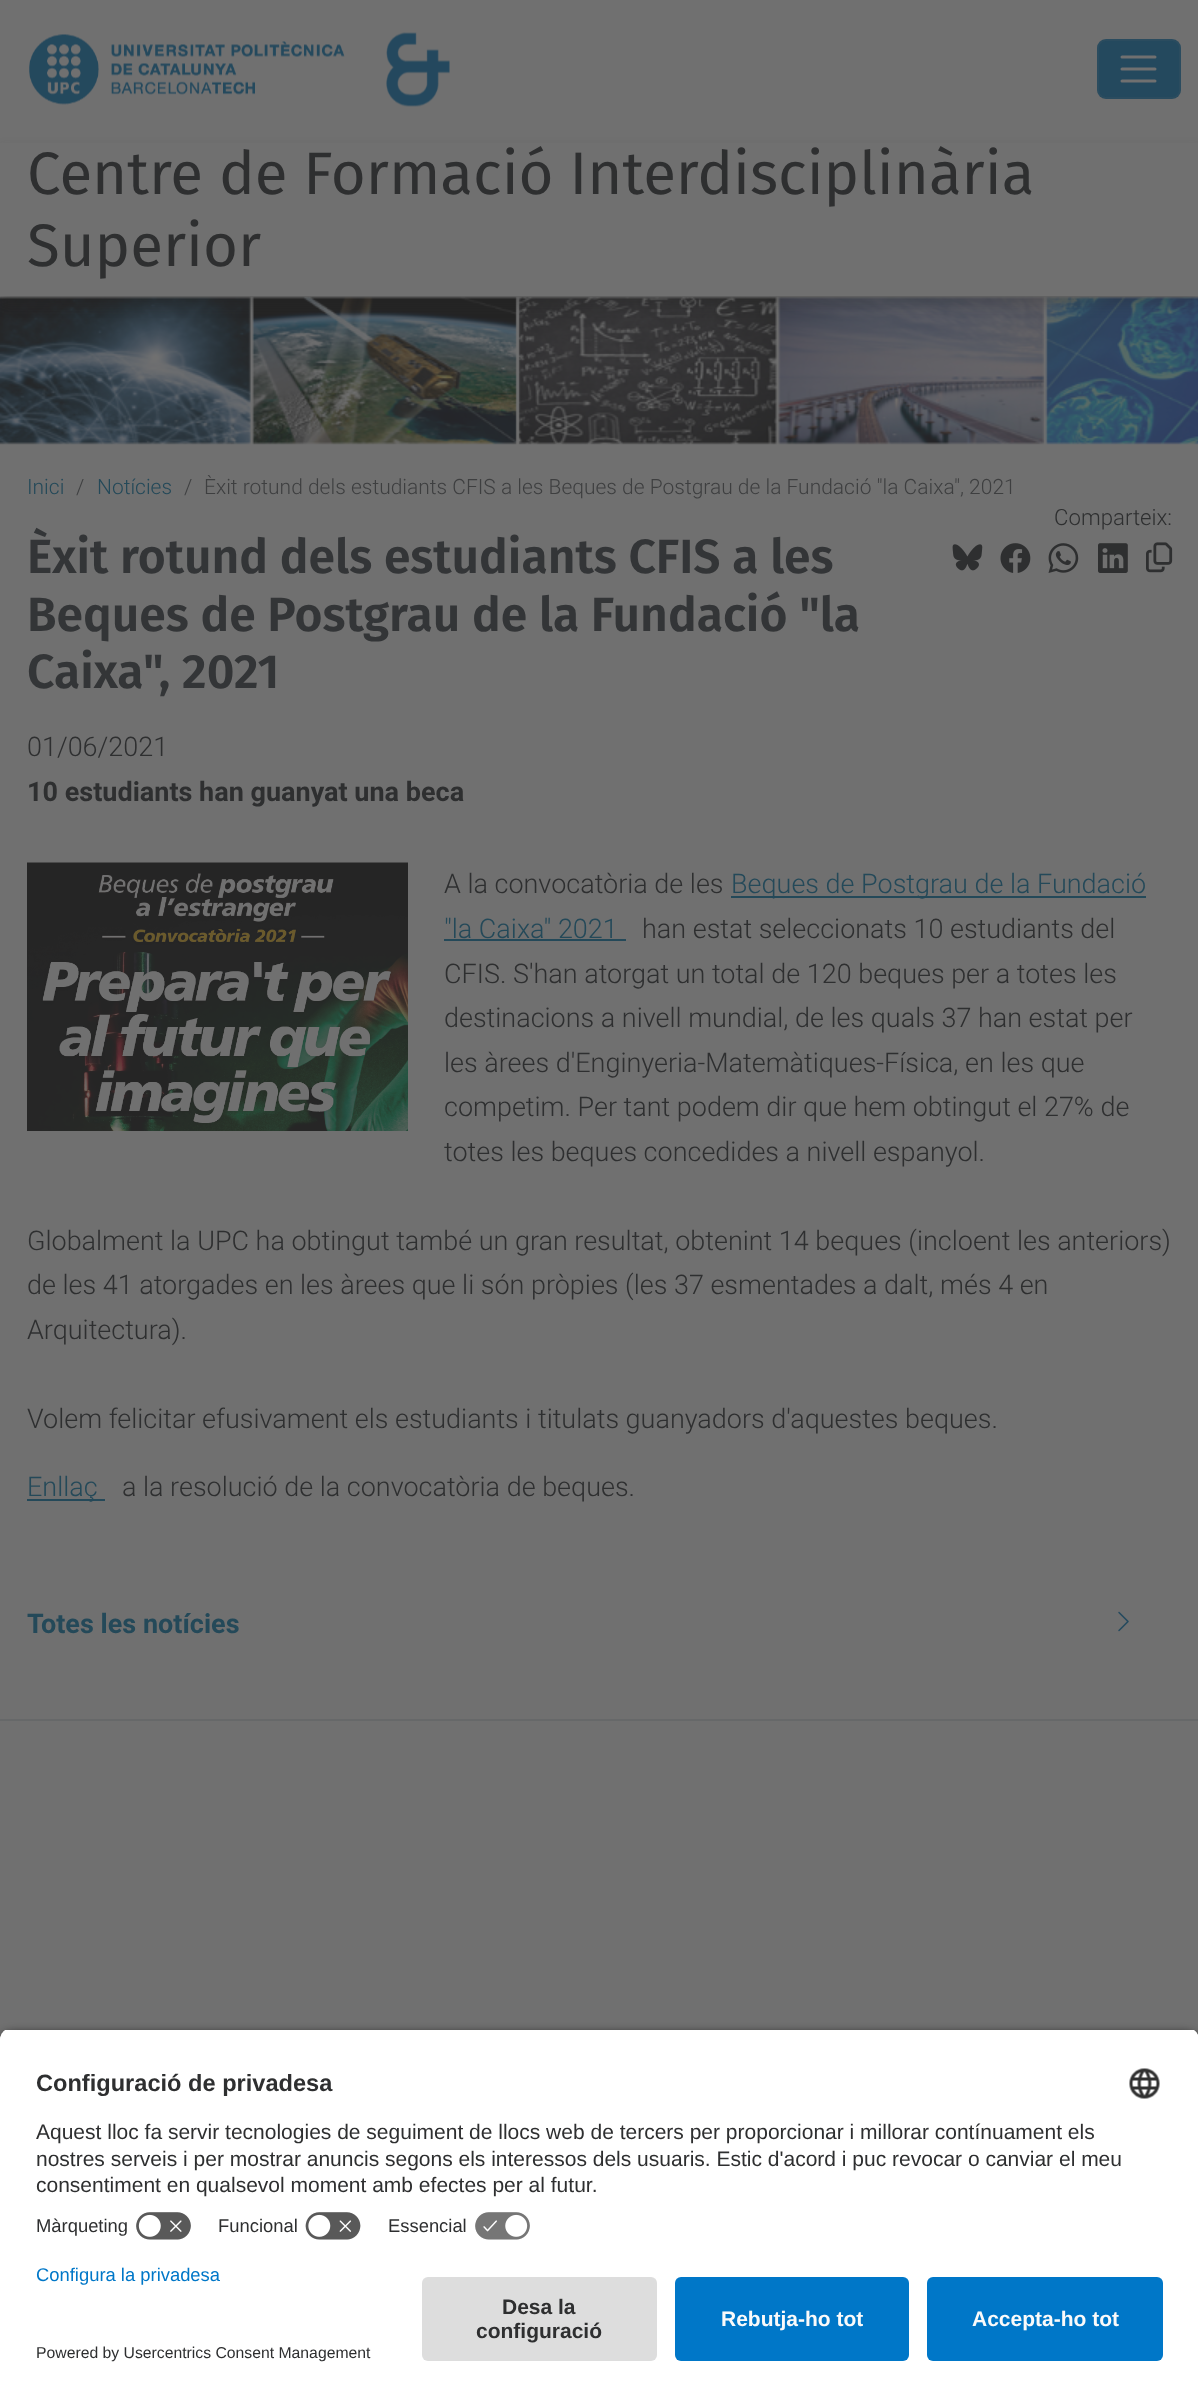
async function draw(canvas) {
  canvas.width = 1198;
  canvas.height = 2396;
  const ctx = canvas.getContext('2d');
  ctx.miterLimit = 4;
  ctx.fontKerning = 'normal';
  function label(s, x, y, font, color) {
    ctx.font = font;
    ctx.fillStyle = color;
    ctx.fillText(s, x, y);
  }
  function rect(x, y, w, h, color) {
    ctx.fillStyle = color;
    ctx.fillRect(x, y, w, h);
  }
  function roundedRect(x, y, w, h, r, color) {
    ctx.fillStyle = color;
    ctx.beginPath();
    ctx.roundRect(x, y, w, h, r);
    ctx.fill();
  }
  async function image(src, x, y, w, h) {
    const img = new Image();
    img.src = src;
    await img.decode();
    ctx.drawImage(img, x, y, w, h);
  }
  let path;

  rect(0, 0, 1198, 2396, '#707070');
  await image('assets/img1.png', 29, 34, 316, 71);
  await image('assets/img2.png', 386, 32, 64, 75);
  roundedRect(1097, 39, 84, 60, 9, '#24495e');
  ctx.beginPath();
  ctx.roundRect(1098, 40, 82, 58, 8);
  ctx.strokeStyle = '#7070701a';
  ctx.lineWidth = 2;
  ctx.stroke();
  path = new Path2D('M1122 57H1155M1122 69H1155M1122 81H1155');
  ctx.strokeStyle = '#707070';
  ctx.lineWidth = 3;
  ctx.lineCap = 'round';
  ctx.stroke(path);
  await image('assets/img3.png', 0, 296, 1198, 149);
  ctx.fillStyle = '#24242433';
  ctx.filter = 'blur(6px)';
  ctx.beginPath();
  ctx.rect(0, 149, 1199, 157);
  ctx.fill();
  ctx.filter = 'none';
  rect(0, 143, 1198, 153, '#707070');
  label('Centre de Formació Interdisciplinària', 27, 194, '60px Fira Sans', '#2e2f30');
  label('Superior', 27, 266, '60px Fira Sans', '#2e2f30');
  label('Inici', 27, 494, '300 21px Roboto', '#244959');
  label('/', 76, 494, '300 21px Roboto', '#3e3f40');
  label('Notícies', 97, 494, '300 21px Roboto', '#244959');
  label('/', 184, 494, '300 21px Roboto', '#3e3f40');
  label('Èxit rotund dels estudiants CFIS a les Beques de Postgrau de la Fundació "la Caixa", 2021', 204, 494, '300 21px Roboto', '#3e3f40');
  label('Comparteix:', 1054, 525, '300 22.25px Roboto', '#2e2f30');
  await image('assets/img4.png', 952, 544, 31, 27);
  await image('assets/img5.png', 1000, 543, 31, 30);
  await image('assets/img6.png', 1048, 543, 31, 30);
  await image('assets/img7.png', 1098, 543, 30, 30);
  await image('assets/img8.png', 1146, 542, 27, 31);
  label('Èxit rotund dels estudiants CFIS a les', 27, 573, '600 48px Fira Sans', '#333537');
  label('Beques de Postgrau de la Fundació "la', 27, 631, '600 48px Fira Sans', '#333537');
  label('Caixa", 2021', 27, 688, '600 48px Fira Sans', '#333537');
  label('01/06/2021', 27, 756, '300 27px Roboto', '#2e2f30');
  label('10 estudiants han guanyat una beca', 27, 801, 'bold 27px Roboto', '#2e2f30');
  await image('assets/img9.png', 27, 862, 381, 269);
  label('A la convocatòria de les', 444, 893, '300 27px Roboto', '#2e2f30');
  rect(731, 896, 415, 2, '#244959');
  label('Beques de Postgrau de la Fundació', 731, 893, '300 27px Roboto', '#244959');
  label('"la Caixa" 2021', 444, 938, '300 27px Roboto', '#244959');
  rect(444, 939, 182, 2, '#244959');
  label('han estat seleccionats 10 estudiants del', 642, 938, '300 27px Roboto', '#2e2f30');
  label('CFIS. S\'han atorgat un total de 120 beques per a totes les', 444, 983, '300 27px Roboto', '#2e2f30');
  label('destinacions a nivell mundial, de les quals 37 han estat per', 444, 1027, '300 27px Roboto', '#2e2f30');
  label('les àrees d\'Enginyeria-Matemàtiques-Física, en les que', 444, 1072, '300 27px Roboto', '#2e2f30');
  label('competim. Per tant podem dir que hem obtingut el 27% de', 444, 1116, '300 27px Roboto', '#2e2f30');
  label('totes les beques concedides a nivell espanyol.', 444, 1161, '300 27px Roboto', '#2e2f30');
  label('Globalment la UPC ha obtingut també un gran resultat, obtenint 14 beques (incloent les anteriors)', 27, 1250, '300 27px Roboto', '#2e2f30');
  label('de les 41 atorgades en les àrees que li són pròpies (les 37 esmentades a dalt, més 4 en', 27, 1294, '300 27px Roboto', '#2e2f30');
  label('Arquitectura).', 27, 1339, '300 27px Roboto', '#2e2f30');
  label('Volem felicitar efusivament els estudiants i titulats guanyadors d\'aquestes beques.', 27, 1428, '300 27px Roboto', '#2e2f30');
  rect(27, 1499, 78, 2, '#244959');
  label('Enllaç', 27, 1496, '300 27px Roboto', '#244959');
  label('a la resolució de la convocatòria de beques.', 122, 1496, '300 27px Roboto', '#2e2f30');
  label('Totes les notícies', 27, 1633, 'bold 27px Roboto', '#244959');
  await image('assets/img10.png', 1118, 1611, 11, 21);
  rect(0, 1719, 1198, 2, '#666869');
  ctx.fillStyle = '#000000cc';
  ctx.filter = 'blur(5px)';
  ctx.beginPath();
  ctx.roundRect(0, 2033, 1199, 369, 12);
  ctx.fill();
  ctx.filter = 'none';
  ctx.save();
  path = new Path2D('M12 2028H1187C1193.5 2028 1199 2033.5 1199 2040V2265H0V2040C0 2033.5 5.5 2028 12 2028Z');
  ctx.clip(path);
  rect(0, 2030, 1198, 235, '#fff');
  rect(0, 2030, 1198, 175, '#fff');
  ctx.restore();
  label('Configuració de privadesa', 36, 2091, 'bold 23.6px Liberation Sans', '#2e2f30');
  await image('assets/img11.png', 1129, 2068, 31, 31);
  label('Aquest lloc fa servir tecnologies de seguiment de llocs web de tercers per proporcionar i millorar contínuament els', 36, 2139, '21px Liberation Sans', '#2e2f30');
  label('nostres serveis i per mostrar anuncis segons els interessos dels usuaris. Estic d\'acord i puc revocar o canviar el meu', 36, 2166, '21px Liberation Sans', '#2e2f30');
  label('consentiment en qualsevol moment amb efectes per al futur.', 36, 2192, '21px Liberation Sans', '#2e2f30');
  label('Màrqueting', 36, 2232, '18.4px Liberation Sans', '#2e2f30');
  await image('assets/img12.png', 136, 2212, 55, 28);
  label('Funcional', 218, 2232, '18.4px Liberation Sans', '#2e2f30');
  await image('assets/img13.png', 305, 2212, 56, 28);
  label('Essencial', 388, 2232, '18.4px Liberation Sans', '#2e2f30');
  await image('assets/img14.png', 475, 2212, 55, 28);
  rect(0, 2265, 1198, 131, '#fff');
  label('Configura la privadesa', 36, 2281, '18.4px Liberation Sans', '#0077c8');
  label('Powered by Usercentrics Consent Management', 36, 2358, '15.75px Liberation Sans', '#2e2f30');
  roundedRect(422, 2277, 235, 84, 6, '#ddd');
  label('Desa la', 502, 2314, 'bold 21px Liberation Sans', '#2e2f30');
  label('configuració', 476, 2338, 'bold 21px Liberation Sans', '#2e2f30');
  roundedRect(675, 2277, 234, 84, 6, '#0077c8');
  label('Rebutja-ho tot', 721, 2326, 'bold 21px Liberation Sans', '#fafafa');
  roundedRect(927, 2277, 236, 84, 6, '#0077c8');
  label('Accepta-ho tot', 972, 2326, 'bold 21px Liberation Sans', '#fafafa');
}

draw(document.querySelector('canvas'));
